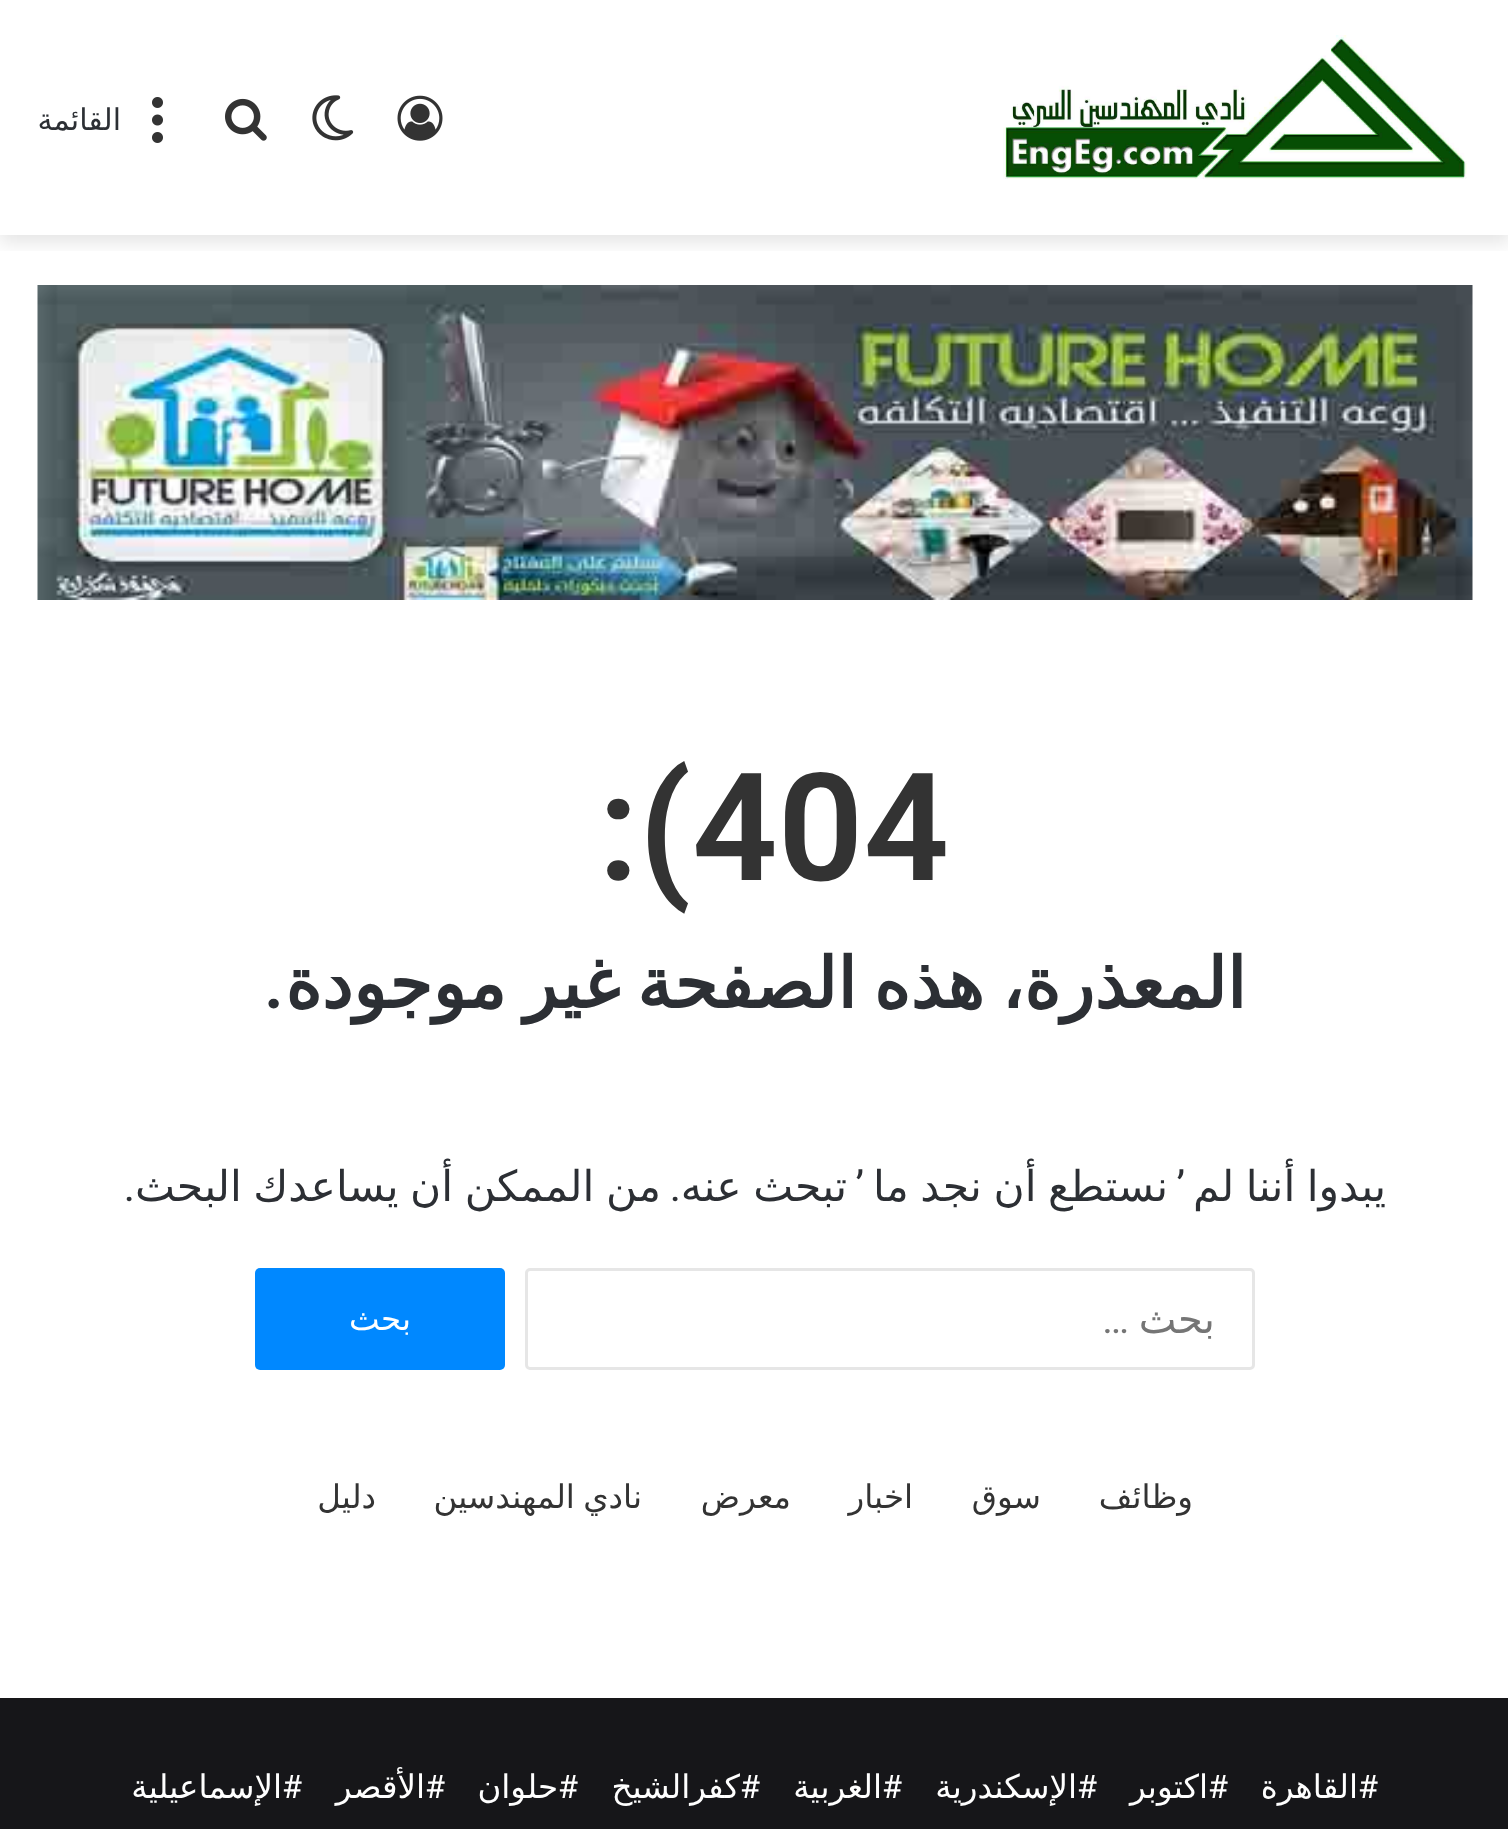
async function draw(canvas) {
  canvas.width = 1508;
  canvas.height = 1829;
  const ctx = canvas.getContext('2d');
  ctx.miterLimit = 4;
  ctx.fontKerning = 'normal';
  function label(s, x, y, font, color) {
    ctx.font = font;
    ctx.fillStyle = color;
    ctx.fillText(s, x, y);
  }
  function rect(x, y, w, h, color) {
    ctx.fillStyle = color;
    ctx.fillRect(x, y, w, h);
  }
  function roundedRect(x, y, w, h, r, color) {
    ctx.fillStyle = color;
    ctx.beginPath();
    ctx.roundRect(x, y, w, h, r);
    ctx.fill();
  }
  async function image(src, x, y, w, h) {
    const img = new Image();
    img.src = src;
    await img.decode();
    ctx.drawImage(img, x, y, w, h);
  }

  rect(0, 0, 1508, 1829, '#fff');
  ctx.save();
  ctx.beginPath();
  ctx.rect(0, 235, 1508, 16);
  ctx.clip();
  ctx.fillStyle = '#0000001a';
  ctx.filter = 'blur(9px)';
  ctx.beginPath();
  ctx.rect(0, 8, 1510, 235);
  ctx.fill();
  ctx.filter = 'none';
  ctx.restore();
  await image('assets/img1.png', 1003, 35, 464, 144);
  await image('assets/img2.png', 397, 95, 46, 46);
  await image('assets/img3.png', 312, 95, 42, 46);
  await image('assets/img4.png', 225, 98, 42, 43);
  await image('assets/img5.png', 152, 97, 11, 46);
  ctx.direction = 'rtl';
  label('القائمة', 121, 130, '30px DejaVu Sans', '#2c2f34');
  await image('assets/img6.png', 37, 285, 1436, 315);
  ctx.direction = 'ltr';
  label('404', 692, 880, '600 150px Roboto', '#333');
  label(':(', 598, 880, '600 150px Roboto', '#333');
  ctx.wordSpacing = '-5px';
  ctx.direction = 'rtl';
  label('المعذرة، هذه الصفحة غير موجودة', 1246, 1008, 'bold 70px DejaVu Sans', '#2c2f34');
  ctx.wordSpacing = '0px';
  label('.', 284, 1008, '600 70px Roboto', '#2c2f34');
  ctx.wordSpacing = '-2px';
  label('يبدوا أننا لم', 1386, 1201, '42.5px DejaVu Sans', '#2c2f34');
  ctx.wordSpacing = '0px';
  label('’', 1185, 1201, '42.5px Roboto', '#2c2f34');
  ctx.wordSpacing = '-2px';
  label('نستطع أن نجد ما', 1168, 1201, '42.5px DejaVu Sans', '#2c2f34');
  ctx.wordSpacing = '0px';
  label('’', 864, 1201, '42.5px Roboto', '#2c2f34');
  ctx.wordSpacing = '-2px';
  label('من الممكن أن يساعدك البحث', 661, 1201, '42.5px DejaVu Sans', '#2c2f34');
  label('تبحث عنه', 847, 1201, '42.5px DejaVu Sans', '#2c2f34');
  ctx.wordSpacing = '0px';
  label('.', 681, 1201, '42.5px Roboto', '#2c2f34');
  label('.', 135, 1201, '42.5px Roboto', '#2c2f34');
  ctx.beginPath();
  ctx.roundRect(526.5, 1269.5, 727, 99, 3.5);
  ctx.strokeStyle = '#e6e6e6';
  ctx.lineWidth = 3;
  ctx.stroke();
  label('بحث', 1215, 1333, '40px DejaVu Sans', '#757575');
  label('…', 1129, 1333, '40px Roboto', '#757575');
  roundedRect(255, 1268, 250, 102, 5, '#08f');
  label('بحث', 411, 1330, '32.5px DejaVu Sans', '#fff');
  label('وظائف', 1193, 1508, '32.5px DejaVu Sans', '#333');
  label('سوق', 1041, 1508, '32.5px DejaVu Sans', '#333');
  label('اخبار', 913, 1508, '32.5px DejaVu Sans', '#333');
  label('معرض', 791, 1508, '32.5px DejaVu Sans', '#333');
  ctx.wordSpacing = '-2px';
  label('نادي المهندسين', 642, 1508, '32.5px DejaVu Sans', '#333');
  ctx.wordSpacing = '0px';
  label('دليل', 376, 1508, '32.5px DejaVu Sans', '#333');
  rect(0, 1698, 1508, 131, '#161619');
  label('#', 1378, 1798, '32.5px Roboto', '#fff');
  label('القاهرة', 1358, 1798, '32.5px DejaVu Sans', '#fff');
  label('#', 1228, 1798, '32.5px Roboto', '#fff');
  label('اكتوبر', 1208, 1798, '32.5px DejaVu Sans', '#fff');
  label('#', 1097, 1798, '32.5px Roboto', '#fff');
  label('الإسكندرية', 1077, 1798, '32.5px DejaVu Sans', '#fff');
  label('#', 902, 1798, '32.5px Roboto', '#fff');
  label('الغربية', 882, 1798, '32.5px DejaVu Sans', '#fff');
  label('#', 760, 1798, '32.5px Roboto', '#fff');
  label('كفرالشيخ', 740, 1798, '32.5px DejaVu Sans', '#fff');
  label('#', 578, 1798, '32.5px Roboto', '#fff');
  label('حلوان', 558, 1798, '32.5px DejaVu Sans', '#fff');
  label('#', 445, 1798, '32.5px Roboto', '#fff');
  label('الأقصر', 425, 1798, '32.5px DejaVu Sans', '#fff');
  label('#', 302, 1798, '32.5px Roboto', '#fff');
  label('الإسماعيلية', 282, 1798, '32.5px DejaVu Sans', '#fff');
}

draw(document.querySelector('canvas'));
